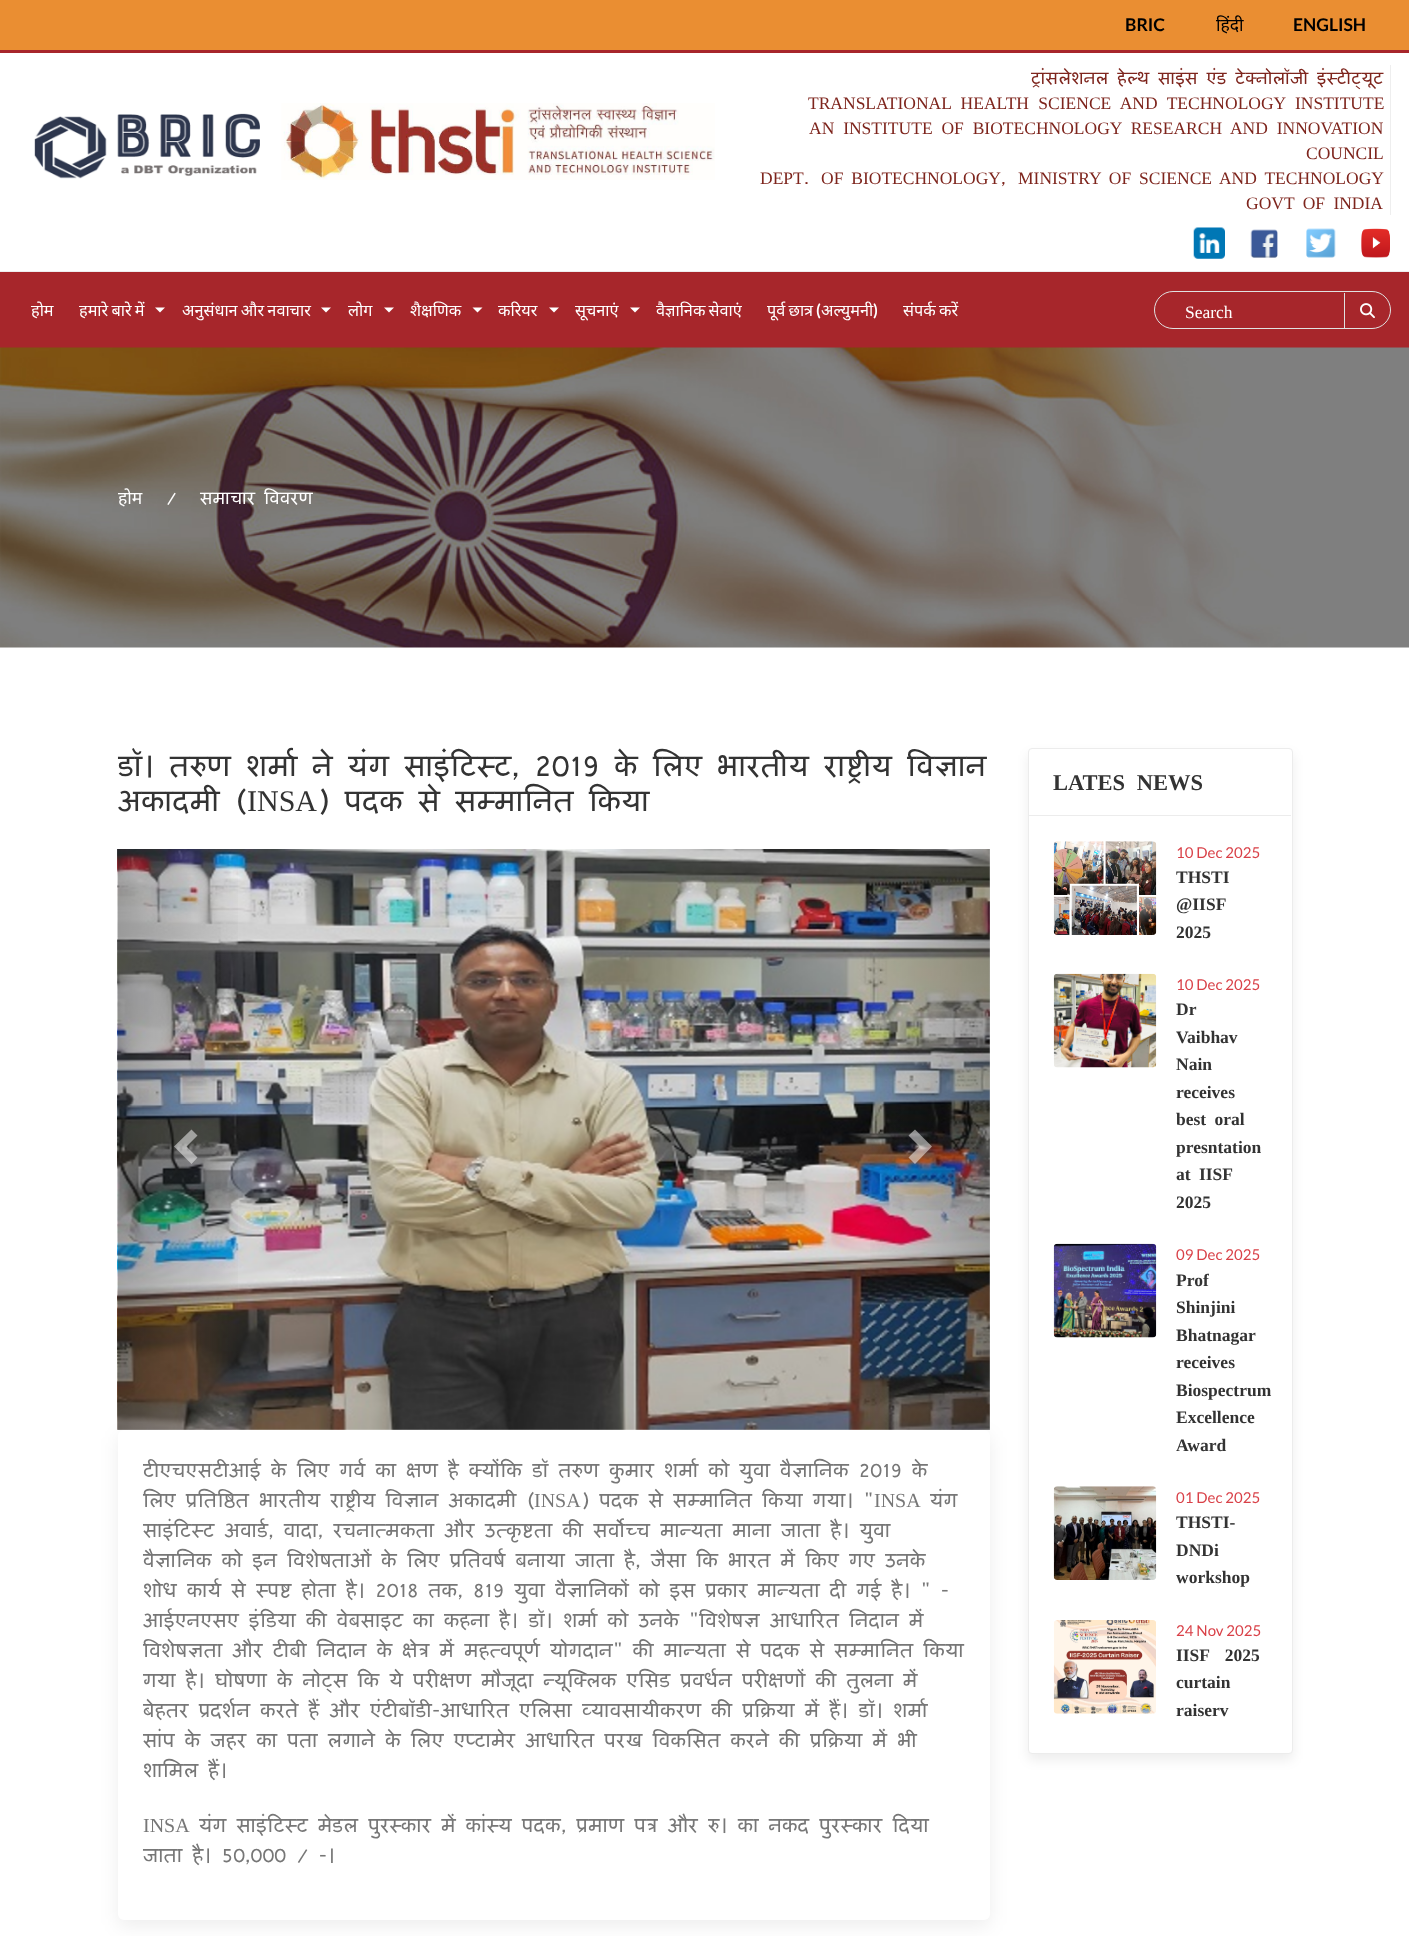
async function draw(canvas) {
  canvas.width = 1409;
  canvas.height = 1936;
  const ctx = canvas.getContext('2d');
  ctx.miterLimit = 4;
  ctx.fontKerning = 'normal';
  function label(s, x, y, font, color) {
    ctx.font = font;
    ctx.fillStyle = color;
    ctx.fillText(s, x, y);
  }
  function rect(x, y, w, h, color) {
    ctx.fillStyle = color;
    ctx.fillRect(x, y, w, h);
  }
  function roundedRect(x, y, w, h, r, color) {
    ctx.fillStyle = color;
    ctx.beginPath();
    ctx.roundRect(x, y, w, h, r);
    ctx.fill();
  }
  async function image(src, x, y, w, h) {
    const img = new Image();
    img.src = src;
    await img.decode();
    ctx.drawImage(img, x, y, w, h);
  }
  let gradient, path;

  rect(0, 0, 1409, 1936, '#fff');
  rect(0, 0, 1409, 50, '#ea8e32');
  rect(0, 50, 1409, 3, '#a7262b');
  label('BRIC', 1125, 31, 'bold 17.5px Lato', '#000');
  label('हिंदी', 1216, 31, '17.5px Noto Sans', '#000');
  label('ENGLISH', 1293, 31, 'bold 17.5px Lato', '#000');
  await image('assets/img1.png', 34, 103, 681, 77);
  rect(1390, 65, 1, 150, '#eee');
  label('ट्रांसलेशनल हेल्थ साइंस एंड टेक्नोलॉजी इंस्टीट्यूट', 1031, 84, '17.5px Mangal', '#7e251d');
  ctx.wordSpacing = '5px';
  label('TRANSLATIONAL HEALTH SCIENCE AND TECHNOLOGY INSTITUTE', 808, 109, '17.5px Liberation Serif', '#7e251d');
  ctx.wordSpacing = '4.5px';
  label('AN INSTITUTE OF BIOTECHNOLOGY RESEARCH AND INNOVATION', 809, 134, '17.5px Liberation Serif', '#7e251d');
  ctx.wordSpacing = '0px';
  label('COUNCIL', 1306, 159, '17.5px Liberation Serif', '#7e251d');
  label('DEPT', 760, 184, '17.5px Liberation Serif', '#7e251d');
  label('.', 804, 184, '17.5px Mangal', '#7e251d');
  ctx.wordSpacing = '3.5px';
  label('OF BIOTECHNOLOGY', 821, 184, '17.5px Liberation Serif', '#7e251d');
  ctx.wordSpacing = '0px';
  label(',', 1001, 184, '17.5px Mangal', '#7e251d');
  ctx.wordSpacing = '3.5px';
  label('MINISTRY OF SCIENCE AND TECHNOLOGY', 1018, 184, '17.5px Liberation Serif', '#7e251d');
  ctx.wordSpacing = '4px';
  label('GOVT OF INDIA', 1246, 209, '17.5px Liberation Serif', '#7e251d');
  await image('assets/img2.png', 1193, 227, 32, 32);
  await image('assets/img3.png', 1250, 229, 28, 29);
  await image('assets/img4.png', 1306, 228, 30, 30);
  await image('assets/img5.png', 1361, 228, 29, 30);
  rect(0, 272, 1409, 76, '#a7262b');
  rect(0, 271, 1409, 1, '#eee');
  ctx.wordSpacing = '0px';
  label('होम', 31, 316, '16.25px Noto Sans', '#fff');
  ctx.wordSpacing = '-1px';
  label('हमारे बारे में', 79, 316, '16.25px Noto Sans', '#fff');
  path = new Path2D('M155 307.5H165L160 312.5Z');
  ctx.fill(path);
  label('अनुसंधान और नवाचार', 182, 316, '16.25px Noto Sans', '#fff');
  path = new Path2D('M321 307.5H331L326 312.5Z');
  ctx.fill(path);
  ctx.wordSpacing = '0px';
  label('लोग', 348, 316, '16.25px Noto Sans', '#fff');
  path = new Path2D('M384 307.5H394L389 312.5Z');
  ctx.fill(path);
  label('शैक्षणिक', 410, 316, '16.25px Noto Sans', '#fff');
  path = new Path2D('M472.5 307.5H482.5L477.5 312.5Z');
  ctx.fill(path);
  label('करियर', 498, 316, '16.25px Noto Sans', '#fff');
  path = new Path2D('M549 307.5H559L554 312.5Z');
  ctx.fill(path);
  label('सूचनाएं', 575, 316, '16.25px Noto Sans', '#fff');
  path = new Path2D('M630 307.5H640L635 312.5Z');
  ctx.fill(path);
  ctx.wordSpacing = '-1px';
  label('वैज्ञानिक सेवाएं', 656, 316, '16.25px Noto Sans', '#fff');
  label('पूर्व छात्र', 767, 316, '16.25px Noto Sans', '#fff');
  ctx.wordSpacing = '0px';
  label('(', 816, 316, 'bold 16.25px Lato', '#fff');
  label('अल्युमनी', 821, 316, '16.25px Noto Sans', '#fff');
  label(')', 873, 316, 'bold 16.25px Lato', '#fff');
  ctx.wordSpacing = '-1px';
  label('संपर्क करें', 903, 316, '16.25px Noto Sans', '#fff');
  ctx.beginPath();
  ctx.roundRect(1154.5, 291.5, 236, 37, 18.5);
  ctx.strokeStyle = '#e1e1e1';
  ctx.stroke();
  ctx.wordSpacing = '0px';
  label('Search', 1185, 318, '17.5px Liberation Serif', '#fff');
  rect(1344, 293, 1, 35, '#e1e1e1');
  await image('assets/img6.png', 1360, 303, 15, 16);
  await image('assets/img7.png', 0, 347, 1409, 301);
  label('होम', 118, 504, '17.5px Noto Sans', '#fff');
  label('/', 166, 504, '17.5px Mangal', '#fff');
  label('समाचार विवरण', 200, 504, '17.5px Mangal', '#fff');
  label('डॉ। तरुण शर्मा ने यंग साइंटिस्ट, 2019 के लिए भारतीय राष्ट्रीय विज्ञान', 118, 776, '30px Mangal', '#333');
  label('अकादमी (', 118, 811, '30px Mangal', '#333');
  label('INSA', 247, 811, '30px Liberation Serif', '#333');
  label(') पदक से सम्मानित किया', 317, 811, '30px Mangal', '#333');
  ctx.fillStyle = '#00000012';
  ctx.filter = 'blur(9.5px)';
  ctx.beginPath();
  ctx.roundRect(118, 1436, 872, 490, 6);
  ctx.fill();
  ctx.filter = 'none';
  await image('assets/img8.png', 117, 849, 873, 581);
  gradient = ctx.createLinearGradient(117, 1139, 249, 1139);
  gradient.addColorStop(0, '#00000040');
  gradient.addColorStop(1, '#00000000');
  ctx.fillStyle = gradient;
  ctx.fillRect(118, 849, 120, 581);
  ctx.fillStyle = '#ffffff80';
  path = new Path2D('M197.5 1135.5L186.5 1146.5L197.5 1157.5L191.5 1164L174 1146.5L191.5 1129.5Z');
  ctx.fill(path);
  gradient = ctx.createLinearGradient(859, 1139, 990, 1139);
  gradient.addColorStop(0, '#00000000');
  gradient.addColorStop(1, '#00000040');
  ctx.fillStyle = gradient;
  ctx.fillRect(870, 849, 120, 581);
  ctx.fillStyle = '#ffffff80';
  path = new Path2D('M932 1146.5L915 1164L908.5 1157.5L919.5 1146.5L908.5 1135.5L915 1129.5Z');
  ctx.fill(path);
  roundedRect(118, 1430, 872, 490, 6, '#fff');
  label('टीएचएसटीआई के लिए गर्व का क्षण है क्योंकि डॉ तरुण कुमार शर्मा को युवा वैज्ञानिक 2019 के', 143, 1477, '20px Mangal', '#777');
  label('लिए प्रतिष्ठित भारतीय राष्ट्रीय विज्ञान अकादमी (', 143, 1507, '20px Mangal', '#777');
  label('INSA', 534, 1507, '20px Liberation Serif', '#777');
  label(') पदक से सम्मानित किया गया। "', 581, 1507, '20px Mangal', '#777');
  label('INSA', 874, 1507, '20px Liberation Serif', '#777');
  label('यंग', 930, 1507, '20px Mangal', '#777');
  label('साइंटिस्ट अवार्ड, वादा, रचनात्मकता और उत्कृष्टता की सर्वोच्च मान्यता माना जाता है। युवा', 143, 1537, '20px Mangal', '#777');
  label('वैज्ञानिक को इन विशेषताओं के लिए प्रतिवर्ष बनाया जाता है, जैसा कि भारत में किए गए उनके', 143, 1567, '20px Mangal', '#777');
  label('शोध कार्य से स्पष्ट होता है। 2018 तक, 819 युवा वैज्ञानिकों को इस प्रकार मान्यता दी गई है। " -', 143, 1597, '20px Mangal', '#777');
  label('आईएनएसए इंडिया की वेबसाइट का कहना है। डॉ। शर्मा को उनके "विशेषज्ञ आधारित निदान में', 143, 1627, '20px Mangal', '#777');
  label('विशेषज्ञता और टीबी निदान के क्षेत्र में महत्वपूर्ण योगदान" की मान्यता से पदक से सम्मानित किया', 143, 1657, '20px Mangal', '#777');
  label('गया है। घोषणा के नोट्स कि ये परीक्षण मौजूदा न्यूक्लिक एसिड प्रवर्धन परीक्षणों की तुलना में', 143, 1687, '20px Mangal', '#777');
  label('बेहतर प्रदर्शन करते हैं और एंटीबॉडी-आधारित एलिसा व्यावसायीकरण की प्रक्रिया में हैं। डॉ। शर्मा', 143, 1717, '20px Mangal', '#777');
  label('सांप के जहर का पता लगाने के लिए एप्टामेर आधारित परख विकसित करने की प्रक्रिया में भी', 143, 1747, '20px Mangal', '#777');
  label('शामिल हैं।', 143, 1777, '20px Mangal', '#777');
  label('INSA', 143, 1832, '20px Liberation Serif', '#777');
  label('यंग साइंटिस्ट मेडल पुरस्कार में कांस्य पदक, प्रमाण पत्र और रु। का नकद पुरस्कार दिया', 199, 1832, '20px Mangal', '#777');
  label('जाता है। 50,000 / -।', 143, 1862, '20px Mangal', '#777');
  ctx.fillStyle = '#00000012';
  ctx.filter = 'blur(6px)';
  ctx.beginPath();
  ctx.roundRect(1028, 754, 265, 1006, 4);
  ctx.fill();
  ctx.filter = 'none';
  ctx.fillStyle = '#fff';
  ctx.beginPath();
  ctx.roundRect(1028.5, 748.5, 264, 1005, 3.5);
  ctx.fill();
  ctx.strokeStyle = '#ececec';
  ctx.stroke();
  rect(1029, 815, 262, 1, '#ececec');
  ctx.wordSpacing = '6px';
  label('LATES NEWS', 1053, 790, 'bold 22.5px Liberation Serif', '#333');
  await image('assets/img9.png', 1053, 841, 104, 94);
  ctx.wordSpacing = '0px';
  label('10 Dec 2025', 1176, 858, '15px Lato', '#d94148');
  label('THSTI', 1176, 883, 'bold 17.5px Liberation Serif', '#333');
  label('@IISF', 1176, 910, 'bold 17.5px Liberation Serif', '#333');
  label('2025', 1176, 938, 'bold 17.5px Liberation Serif', '#333');
  await image('assets/img10.png', 1053, 973, 104, 95);
  label('10 Dec 2025', 1176, 990, '15px Lato', '#d94148');
  label('Dr', 1176, 1015, 'bold 17.5px Liberation Serif', '#333');
  label('Vaibhav', 1176, 1043, 'bold 17.5px Liberation Serif', '#333');
  label('Nain', 1176, 1070, 'bold 17.5px Liberation Serif', '#333');
  label('receives', 1176, 1098, 'bold 17.5px Liberation Serif', '#333');
  ctx.wordSpacing = '4px';
  label('best oral', 1176, 1125, 'bold 17.5px Liberation Serif', '#333');
  ctx.wordSpacing = '0px';
  label('presntation', 1176, 1153, 'bold 17.5px Liberation Serif', '#333');
  ctx.wordSpacing = '4px';
  label('at IISF', 1176, 1180, 'bold 17.5px Liberation Serif', '#333');
  ctx.wordSpacing = '0px';
  label('2025', 1176, 1208, 'bold 17.5px Liberation Serif', '#333');
  await image('assets/img11.png', 1053, 1243, 104, 95);
  label('09 Dec 2025', 1176, 1260, '15px Lato', '#d94148');
  label('Prof', 1176, 1286, 'bold 17.5px Liberation Serif', '#333');
  label('Shinjini', 1176, 1313, 'bold 17.5px Liberation Serif', '#333');
  label('Bhatnagar', 1176, 1341, 'bold 17.5px Liberation Serif', '#333');
  label('receives', 1176, 1368, 'bold 17.5px Liberation Serif', '#333');
  label('Biospectrum', 1176, 1396, 'bold 17.5px Liberation Serif', '#333');
  label('Excellence', 1176, 1423, 'bold 17.5px Liberation Serif', '#333');
  label('Award', 1176, 1451, 'bold 17.5px Liberation Serif', '#333');
  await image('assets/img12.png', 1053, 1486, 104, 94);
  label('01 Dec 2025', 1176, 1503, '15px Lato', '#d94148');
  label('THSTI-', 1176, 1528, 'bold 17.5px Liberation Serif', '#333');
  label('DNDi', 1176, 1556, 'bold 17.5px Liberation Serif', '#333');
  label('workshop', 1176, 1583, 'bold 17.5px Liberation Serif', '#333');
  await image('assets/img13.png', 1053, 1620, 103, 94);
  label('24 Nov 2025', 1176, 1636, '15px Lato', '#d94148');
  ctx.wordSpacing = '11px';
  label('IISF 2025', 1176, 1661, 'bold 17.5px Liberation Serif', '#333');
  ctx.wordSpacing = '0px';
  label('curtain', 1176, 1688, 'bold 17.5px Liberation Serif', '#333');
  label('raiserv', 1176, 1716, 'bold 17.5px Liberation Serif', '#333');
}

draw(document.querySelector('canvas'));
